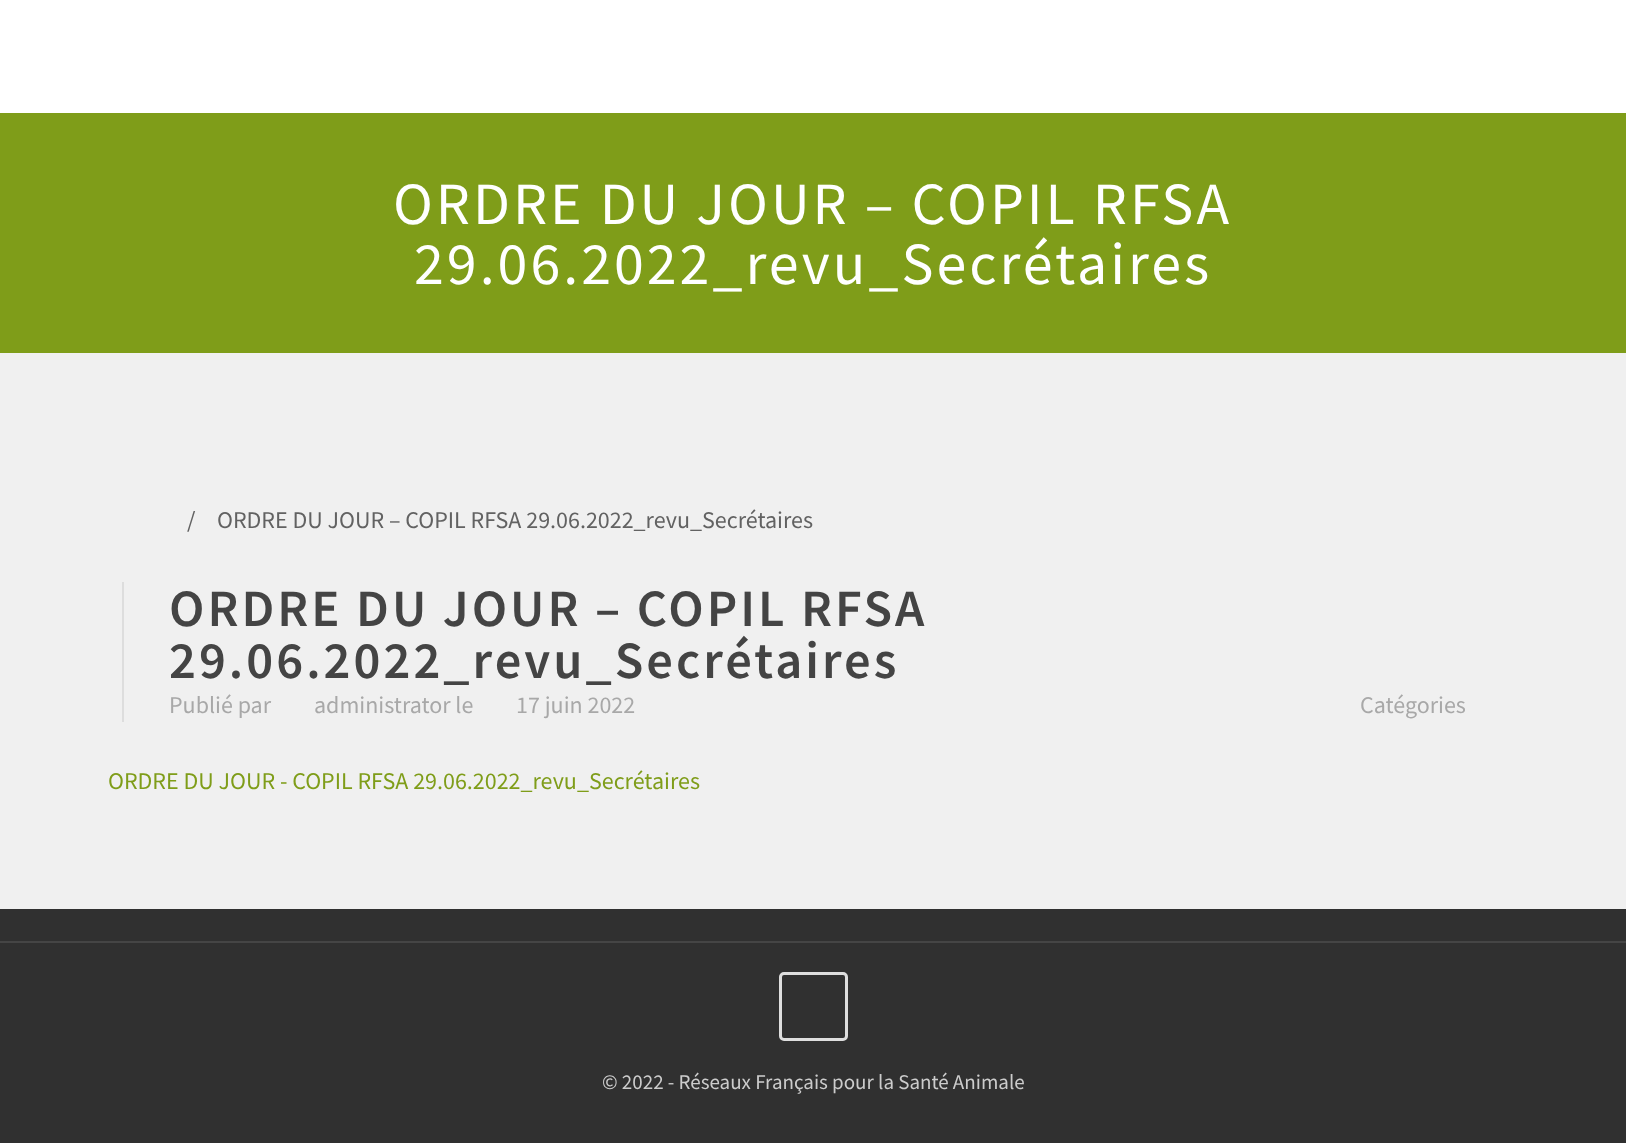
async function draw(canvas) {
  canvas.width = 1626;
  canvas.height = 1143;
  const ctx = canvas.getContext('2d');
  ctx.miterLimit = 4;
  ctx.fontKerning = 'normal';
  function label(s, x, y, font, color) {
    ctx.font = font;
    ctx.fillStyle = color;
    ctx.fillText(s, x, y);
  }
  function rect(x, y, w, h, color) {
    ctx.fillStyle = color;
    ctx.fillRect(x, y, w, h);
  }

  rect(0, 0, 1626, 1143, '#303030');
  rect(0, 0, 1626, 113, '#fff');
  rect(0, 113, 1626, 240, '#7f9d19');
  ctx.letterSpacing = '3px';
  label('ORDRE DU JOUR – COPIL RFSA', 393, 224, '60px Source Sans Pro', '#fff');
  label('29.06.2022_revu_Secrétaires', 414, 284, '60px Source Sans Pro', '#fff');
  rect(0, 353, 1626, 556, '#f0f0f0');
  ctx.letterSpacing = '0px';
  label('/', 187, 528, '24px Source Sans Pro', '#626262');
  label('ORDRE DU JOUR – COPIL RFSA 29.06.2022_revu_Secrétaires', 217, 528, '24px Source Sans Pro', '#626262');
  rect(122, 582, 2, 140, '#ddd');
  ctx.letterSpacing = '3px';
  label('ORDRE DU JOUR – COPIL RFSA', 169, 626, '600 52.5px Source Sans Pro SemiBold', '#444');
  label('29.06.2022_revu_Secrétaires', 169, 678, '600 52.5px Source Sans Pro SemiBold', '#444');
  ctx.letterSpacing = '0px';
  label('Publié par', 169, 713, '24px Source Sans Pro', '#a8a8a8');
  label('administrator le', 314, 713, '24px Source Sans Pro', '#a8a8a8');
  label('17 juin 2022', 516, 713, '24px Source Sans Pro', '#a8a8a8');
  label('Catégories', 1360, 713, '24px Source Sans Pro', '#a8a8a8');
  label('ORDRE DU JOUR - COPIL RFSA 29.06.2022_revu_Secrétaires', 108, 789, '24px Source Sans Pro', '#7f9d19');
  rect(0, 941, 1626, 2, '#454545');
  ctx.beginPath();
  ctx.roundRect(780.5, 973.5, 66, 66, 3.5);
  ctx.strokeStyle = '#dedede';
  ctx.lineWidth = 3;
  ctx.stroke();
  label('© 2022 - Réseaux Français pour la Santé Animale', 602, 1089, '21px Source Sans Pro', '#ccc');
}

draw(document.querySelector('canvas'));
